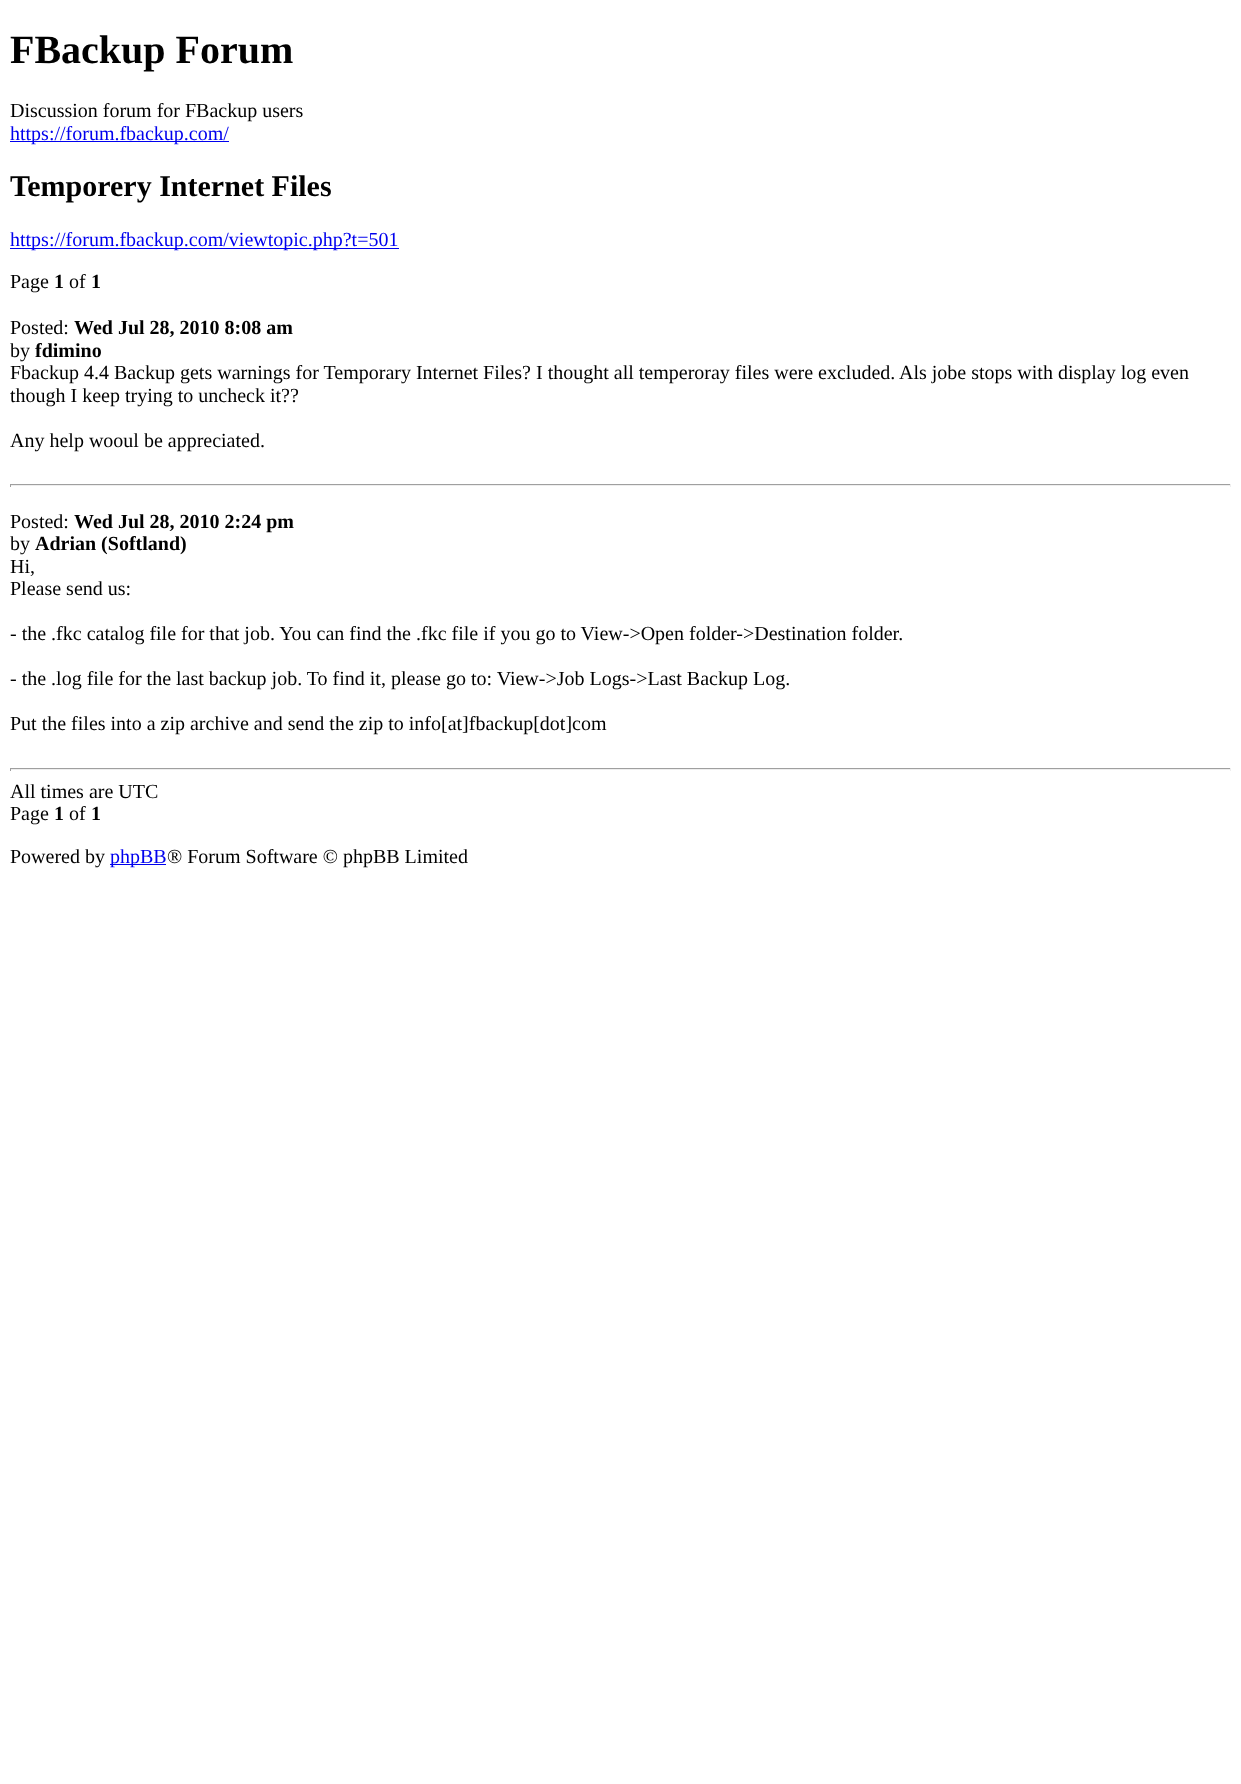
async function draw(canvas) {
  canvas.width = 1241;
  canvas.height = 1784;
  const ctx = canvas.getContext('2d');
  ctx.miterLimit = 4;
  ctx.fontKerning = 'normal';
  function label(s, x, y, font, color) {
    ctx.font = font;
    ctx.fillStyle = color;
    ctx.fillText(s, x, y);
  }
  function rect(x, y, w, h, color) {
    ctx.fillStyle = color;
    ctx.fillRect(x, y, w, h);
  }

  rect(0, 0, 1241, 1784, '#fff');
  label('FBackup Forum', 10, 63, 'bold 40px Liberation Serif', '#000');
  label('Discussion forum for FBackup users', 10, 117, '20px Liberation Serif', '#000');
  rect(10, 141, 219, 1, '#00e');
  label('https://forum.fbackup.com/', 10, 140, '20px Liberation Serif', '#00e');
  label('Temporery Internet Files', 10, 196, 'bold 30px Liberation Serif', '#000');
  rect(10, 248, 389, 1, '#00e');
  label('https://forum.fbackup.com/viewtopic.php?t=501', 10, 246, '20px Liberation Serif', '#00e');
  label('Page', 10, 288, '20px Liberation Serif', '#000');
  label('1', 54, 288, 'bold 20px Liberation Serif', '#000');
  label('of', 69, 288, '20px Liberation Serif', '#000');
  label('1', 91, 288, 'bold 20px Liberation Serif', '#000');
  label('Posted:', 10, 334, '20px Liberation Serif', '#000');
  label('Wed Jul 28, 2010 8:08 am', 74, 334, 'bold 20px Liberation Serif', '#000');
  label('by', 10, 357, '20px Liberation Serif', '#000');
  label('fdimino', 35, 357, 'bold 20px Liberation Serif', '#000');
  label('Fbackup 4.4 Backup gets warnings for Temporary Internet Files?', 10, 379, '20px Liberation Serif', '#000');
  label('I thought all temperoray files were excluded.', 536, 379, '20px Liberation Serif', '#000');
  label('Als jobe stops with display log even', 899, 379, '20px Liberation Serif', '#000');
  label('though I keep trying to uncheck it??', 10, 402, '20px Liberation Serif', '#000');
  label('Any help wooul be appreciated.', 10, 447, '20px Liberation Serif', '#000');
  rect(10, 484, 1221, 1, '#9f9f9f');
  rect(1230, 484, 1, 3, '#eee');
  rect(10, 485, 1221, 1, '#eee');
  rect(10, 484, 1, 3, '#9f9f9f');
  label('Posted:', 10, 528, '20px Liberation Serif', '#000');
  label('Wed Jul 28, 2010 2:24 pm', 74, 528, 'bold 20px Liberation Serif', '#000');
  label('by', 10, 550, '20px Liberation Serif', '#000');
  label('Adrian (Softland)', 35, 550, 'bold 20px Liberation Serif', '#000');
  label('Hi,', 10, 573, '20px Liberation Serif', '#000');
  label('Please send us:', 10, 595, '20px Liberation Serif', '#000');
  label('- the .fkc catalog file for that job. You can find the .fkc file if you go to View->Open folder->Destination folder.', 10, 640, '20px Liberation Serif', '#000');
  label('- the .log file for the last backup job. To find it, please go to: View->Job Logs->Last Backup Log.', 10, 685, '20px Liberation Serif', '#000');
  label('Put the files into a zip archive and send the zip to info[at]fbackup[dot]com', 10, 730, '20px Liberation Serif', '#000');
  rect(10, 768, 1221, 1, '#9f9f9f');
  rect(1230, 768, 1, 3, '#eee');
  rect(10, 769, 1221, 1, '#eee');
  rect(10, 768, 1, 3, '#9f9f9f');
  label('All times are UTC', 10, 798, '20px Liberation Serif', '#000');
  label('Page', 10, 820, '20px Liberation Serif', '#000');
  label('1', 54, 820, 'bold 20px Liberation Serif', '#000');
  label('of', 69, 820, '20px Liberation Serif', '#000');
  label('1', 91, 820, 'bold 20px Liberation Serif', '#000');
  label('Powered by', 10, 863, '20px Liberation Serif', '#000');
  rect(110, 864, 56, 1, '#00e');
  label('phpBB', 110, 863, '20px Liberation Serif', '#00e');
  label('® Forum Software © phpBB Limited', 167, 863, '20px Liberation Serif', '#000');
}

draw(document.querySelector('canvas'));
